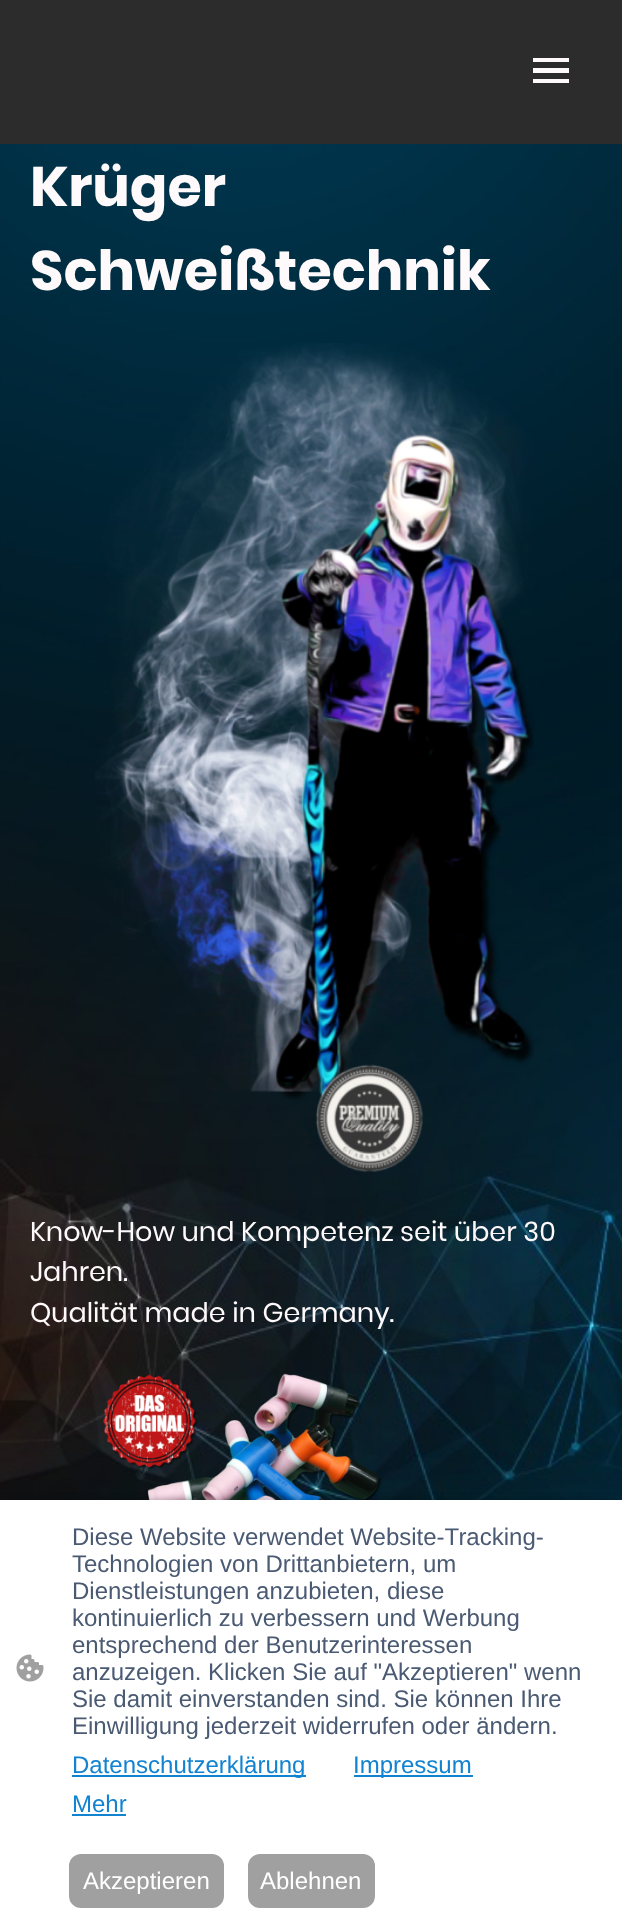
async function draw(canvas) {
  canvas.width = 622;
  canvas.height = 1920;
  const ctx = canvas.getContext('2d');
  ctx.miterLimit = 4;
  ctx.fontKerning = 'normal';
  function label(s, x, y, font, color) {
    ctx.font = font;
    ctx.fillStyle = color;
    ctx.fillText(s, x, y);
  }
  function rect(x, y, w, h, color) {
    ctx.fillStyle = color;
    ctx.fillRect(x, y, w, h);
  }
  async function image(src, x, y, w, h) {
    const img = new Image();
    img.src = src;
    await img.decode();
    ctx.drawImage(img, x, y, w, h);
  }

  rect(0, 0, 622, 1920, '#2c2c2c');
  rect(533, 58, 36, 4, '#fef9fa');
  rect(533, 68, 36, 5, '#fef9fa');
  rect(533, 79, 36, 4, '#fef9fa');
  await image('assets/img1.png', 0, 144, 622, 1356);
  label('Krüger', 30, 206, 'bold 55.5px Poppins', '#fef9fa');
  label('Schweißtechnik', 30, 290, 'bold 55.5px Poppins', '#fef9fa');
  await image('assets/img2.png', 95, 343, 439, 829);
  label('Know-How und Kompetenz seit über 30', 30, 1241, '27px Poppins', '#fef9fa');
  label('Jahren.', 30, 1281, '27px Poppins', '#fef9fa');
  label('Qualität made in Germany.', 30, 1322, '27px Poppins', '#fef9fa');
  await image('assets/img3.png', 103, 1373, 279, 127);
  ctx.fillStyle = '#000000a1';
  ctx.filter = 'blur(6px)';
  ctx.beginPath();
  ctx.rect(9, 1505, 605, 402);
  ctx.fill();
  ctx.filter = 'none';
  rect(0, 1500, 622, 420, '#fff');
  await image('assets/img4.png', 16, 1654, 28, 28);
  label('Diese Website verwendet Website-Tracking-', 72, 1545, '24px Liberation Sans', '#4a5a73');
  label('Technologien von Drittanbietern, um', 72, 1572, '24px Liberation Sans', '#4a5a73');
  label('Dienstleistungen anzubieten, diese', 72, 1599, '24px Liberation Sans', '#4a5a73');
  label('kontinuierlich zu verbessern und Werbung', 72, 1626, '24px Liberation Sans', '#4a5a73');
  label('entsprechend der Benutzerinteressen', 72, 1653, '24px Liberation Sans', '#4a5a73');
  label('anzuzeigen. Klicken Sie auf "Akzeptieren" wenn', 72, 1680, '24px Liberation Sans', '#4a5a73');
  label('Sie damit einverstanden sind. Sie können Ihre', 72, 1707, '24px Liberation Sans', '#4a5a73');
  label('Einwilligung jederzeit widerrufen oder ändern.', 72, 1734, '24px Liberation Sans', '#4a5a73');
  rect(72, 1775, 234, 2, '#1183d1');
  label('Datenschutzerklärung', 72, 1773, '24px Liberation Sans', '#1183d1');
  rect(354, 1775, 119, 2, '#1183d1');
  label('Impressum', 353, 1773, '24px Liberation Sans', '#1183d1');
  label('Mehr', 72, 1812, '24px Liberation Sans', '#1183d1');
  rect(72, 1814, 54, 2, '#1183d1');
  ctx.fillStyle = '#a0a0a0';
  ctx.beginPath();
  ctx.roundRect(70, 1855, 153, 52, 11);
  ctx.fill();
  ctx.strokeStyle = '#a0a0a0';
  ctx.lineWidth = 2;
  ctx.stroke();
  label('Akzeptieren', 83, 1889, '24px Liberation Sans', '#fff');
  ctx.fillStyle = '#a0a0a0';
  ctx.beginPath();
  ctx.roundRect(249, 1855, 125, 52, 11);
  ctx.fill();
  ctx.stroke();
  label('Ablehnen', 260, 1889, '24px Liberation Sans', '#fff');
}

draw(document.querySelector('canvas'));
